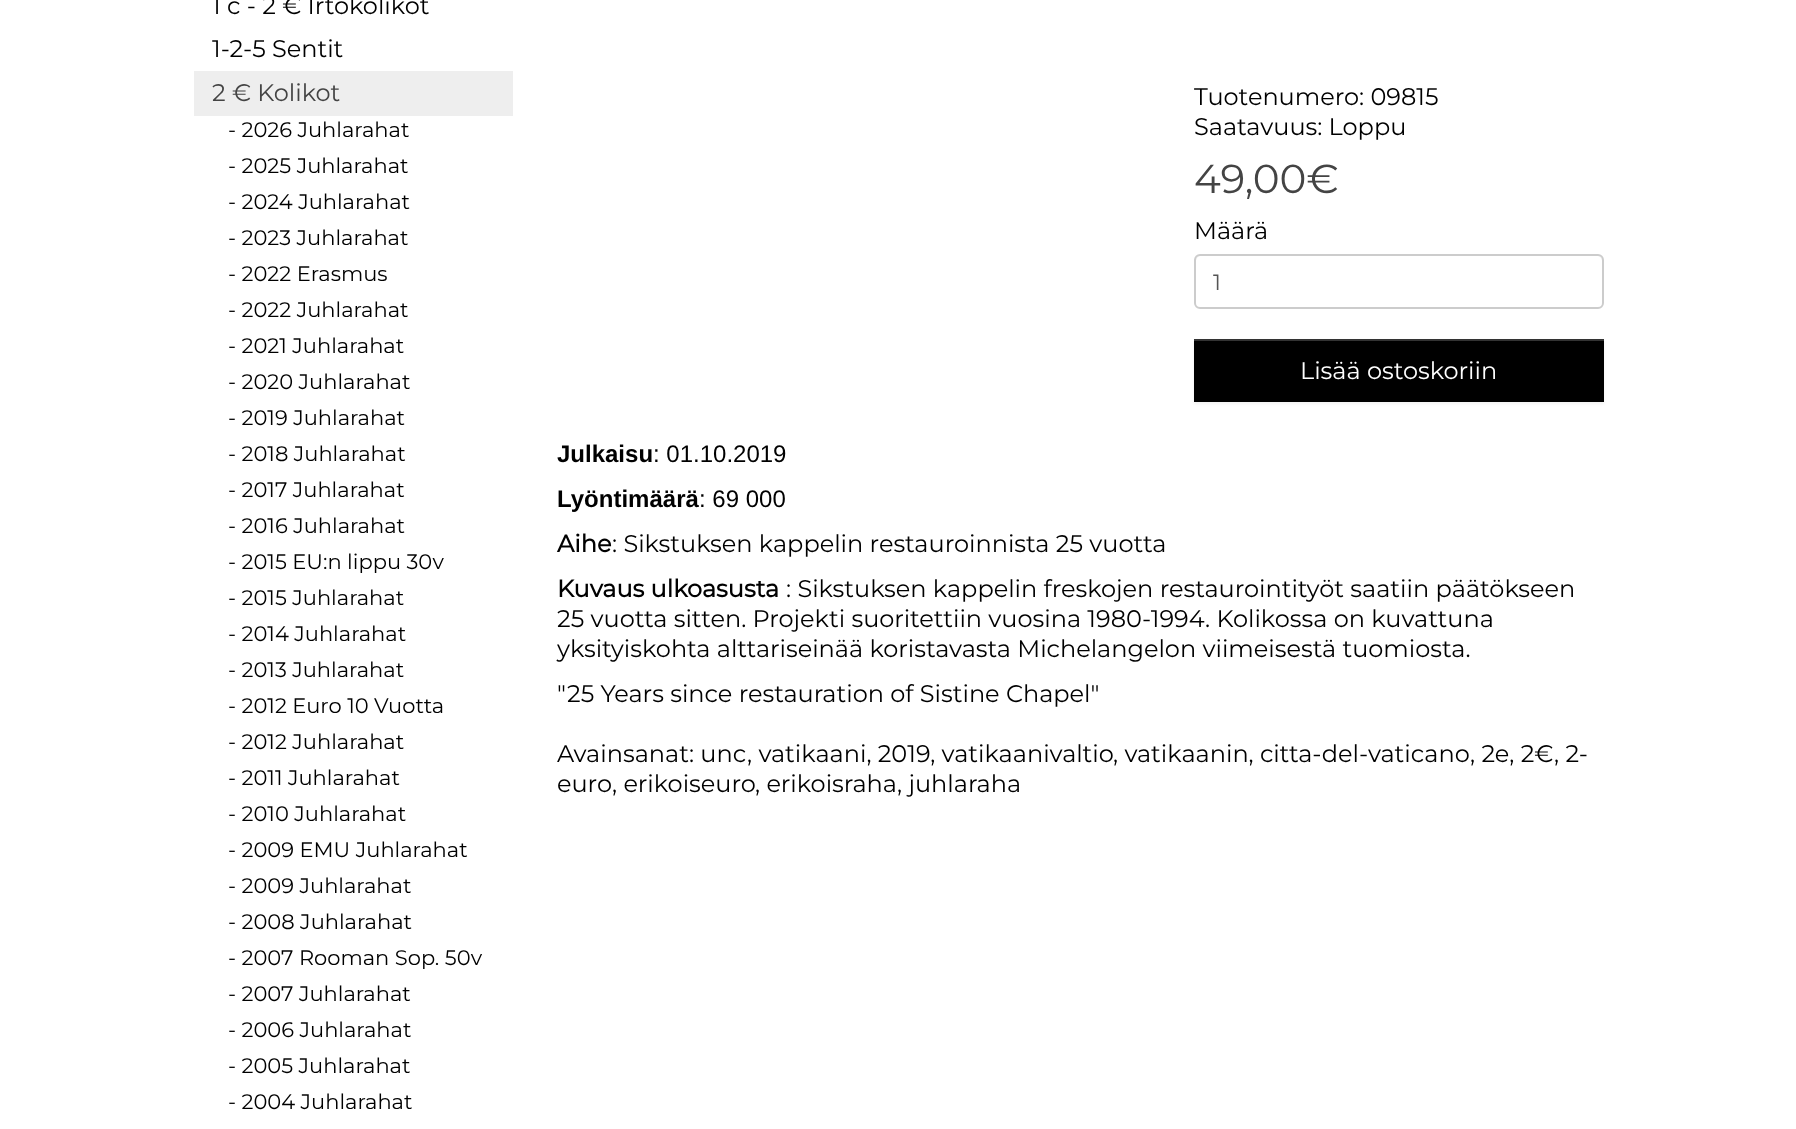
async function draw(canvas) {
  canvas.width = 1796;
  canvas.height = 1129;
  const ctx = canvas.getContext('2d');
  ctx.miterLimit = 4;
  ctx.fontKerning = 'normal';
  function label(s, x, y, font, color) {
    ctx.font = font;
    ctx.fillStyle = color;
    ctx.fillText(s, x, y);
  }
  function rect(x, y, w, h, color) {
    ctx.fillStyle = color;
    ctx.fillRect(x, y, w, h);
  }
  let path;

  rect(0, 0, 1796, 1129, '#fff');
  label('1 c - 2 € Irtokolikot', 212, 14, '100 24px Montserrat', '#000');
  label('1-2-5 Sentit', 212, 57, '100 24px Montserrat', '#000');
  rect(194, 71, 319, 45, '#eee');
  label('2 € Kolikot', 212, 101, '100 24px Montserrat', '#444');
  label('- 2026 Juhlarahat', 228, 137, '100 21px Montserrat', '#000');
  label('- 2025 Juhlarahat', 228, 173, '100 21px Montserrat', '#000');
  label('- 2024 Juhlarahat', 228, 209, '100 21px Montserrat', '#000');
  label('- 2023 Juhlarahat', 228, 245, '100 21px Montserrat', '#000');
  label('- 2022 Erasmus', 228, 281, '100 21px Montserrat', '#000');
  label('- 2022 Juhlarahat', 228, 317, '100 21px Montserrat', '#000');
  label('- 2021 Juhlarahat', 228, 353, '100 21px Montserrat', '#000');
  label('- 2020 Juhlarahat', 228, 389, '100 21px Montserrat', '#000');
  label('- 2019 Juhlarahat', 228, 425, '100 21px Montserrat', '#000');
  label('- 2018 Juhlarahat', 228, 461, '100 21px Montserrat', '#000');
  label('- 2017 Juhlarahat', 228, 497, '100 21px Montserrat', '#000');
  label('- 2016 Juhlarahat', 228, 533, '100 21px Montserrat', '#000');
  label('- 2015 EU:n lippu 30v', 228, 569, '100 21px Montserrat', '#000');
  label('- 2015 Juhlarahat', 228, 605, '100 21px Montserrat', '#000');
  label('- 2014 Juhlarahat', 228, 641, '100 21px Montserrat', '#000');
  label('- 2013 Juhlarahat', 228, 677, '100 21px Montserrat', '#000');
  label('- 2012 Euro 10 Vuotta', 228, 713, '100 21px Montserrat', '#000');
  label('- 2012 Juhlarahat', 228, 749, '100 21px Montserrat', '#000');
  label('- 2011 Juhlarahat', 228, 785, '100 21px Montserrat', '#000');
  label('- 2010 Juhlarahat', 228, 821, '100 21px Montserrat', '#000');
  label('- 2009 EMU Juhlarahat', 228, 857, '100 21px Montserrat', '#000');
  label('- 2009 Juhlarahat', 228, 893, '100 21px Montserrat', '#000');
  label('- 2008 Juhlarahat', 228, 929, '100 21px Montserrat', '#000');
  label('- 2007 Rooman Sop. 50v', 228, 965, '100 21px Montserrat', '#000');
  label('- 2007 Juhlarahat', 228, 1001, '100 21px Montserrat', '#000');
  label('- 2006 Juhlarahat', 228, 1037, '100 21px Montserrat', '#000');
  label('- 2005 Juhlarahat', 228, 1073, '100 21px Montserrat', '#000');
  label('- 2004 Juhlarahat', 228, 1109, '100 21px Montserrat', '#000');
  label('Tuotenumero: 09815', 1194, 105, '100 24px Montserrat', '#000');
  label('Saatavuus: Loppu', 1194, 135, '100 24px Montserrat', '#000');
  label('49,00€', 1194, 193, '100 40.5px Montserrat', '#444');
  label('Määrä', 1194, 239, '100 24px Montserrat', '#000');
  ctx.fillStyle = '#ececec';
  path = new Path2D('M1200 256H1598C1600 256 1602 259 1602 261V260C1602 257 1600 255 1597 255H1201C1198 255 1196 257 1196 260V261C1196 259 1198 256 1200 256Z');
  ctx.fill(path);
  ctx.beginPath();
  ctx.roundRect(1195, 255, 408, 53, 5);
  ctx.strokeStyle = '#ccc';
  ctx.lineWidth = 2;
  ctx.stroke();
  label('1', 1213, 290, '100 22px Montserrat', '#555');
  ctx.fillStyle = '#0000000d';
  ctx.filter = 'blur(1.5px)';
  ctx.beginPath();
  ctx.rect(1194, 341, 410, 63);
  ctx.fill();
  ctx.filter = 'none';
  rect(1194, 341, 410, 61, '#000');
  rect(1194, 339, 410, 2, '#333');
  label('Lisää ostoskoriin', 1300, 379, '100 24px Montserrat', '#fff');
  label('Julkaisu', 557, 462, 'bold 24px Liberation Sans', '#000');
  label(': 01.10.2019', 653, 462, '24px Liberation Sans', '#000');
  label('Lyöntimäärä', 557, 507, 'bold 24px Liberation Sans', '#000');
  label(': 69 000', 699, 507, '24px Liberation Sans', '#000');
  label('Aihe', 557, 552, 'bold 24px Montserrat', '#000');
  label(': Sikstuksen kappelin restauroinnista 25 vuotta', 612, 552, '100 24px Montserrat', '#000');
  label('Kuvaus ulkoasusta', 557, 597, 'bold 24px Montserrat', '#000');
  label(': Sikstuksen kappelin freskojen restaurointityöt saatiin päätökseen', 786, 597, '100 24px Montserrat', '#000');
  label('25 vuotta sitten. Projekti suoritettiin vuosina 1980-1994. Kolikossa on kuvattuna', 557, 627, '100 24px Montserrat', '#000');
  label('yksityiskohta alttariseinää koristavasta Michelangelon viimeisestä tuomiosta.', 557, 657, '100 24px Montserrat', '#000');
  label('"', 557, 702, '100 24px Montserrat', '#000');
  label('25 Years since restauration of Sistine Chapel"', 567, 702, '100 24px Montserrat', '#000');
  label('Avainsanat: unc', 557, 762, '100 24px Montserrat', '#000');
  label(', vatikaani, 2019, vatikaanivaltio', 747, 762, '100 24px Montserrat', '#000');
  label(', vatikaanin, citta-del-vaticano', 1113, 762, '100 24px Montserrat', '#000');
  label(', 2e, 2€', 1470, 762, '100 24px Montserrat', '#000');
  label(', 2-', 1554, 762, '100 24px Montserrat', '#000');
  label('euro', 557, 792, '100 24px Montserrat', '#000');
  label(', erikoiseuro', 612, 792, '100 24px Montserrat', '#000');
  label(', erikoisraha, juhlaraha', 755, 792, '100 24px Montserrat', '#000');
}

draw(document.querySelector('canvas'));
